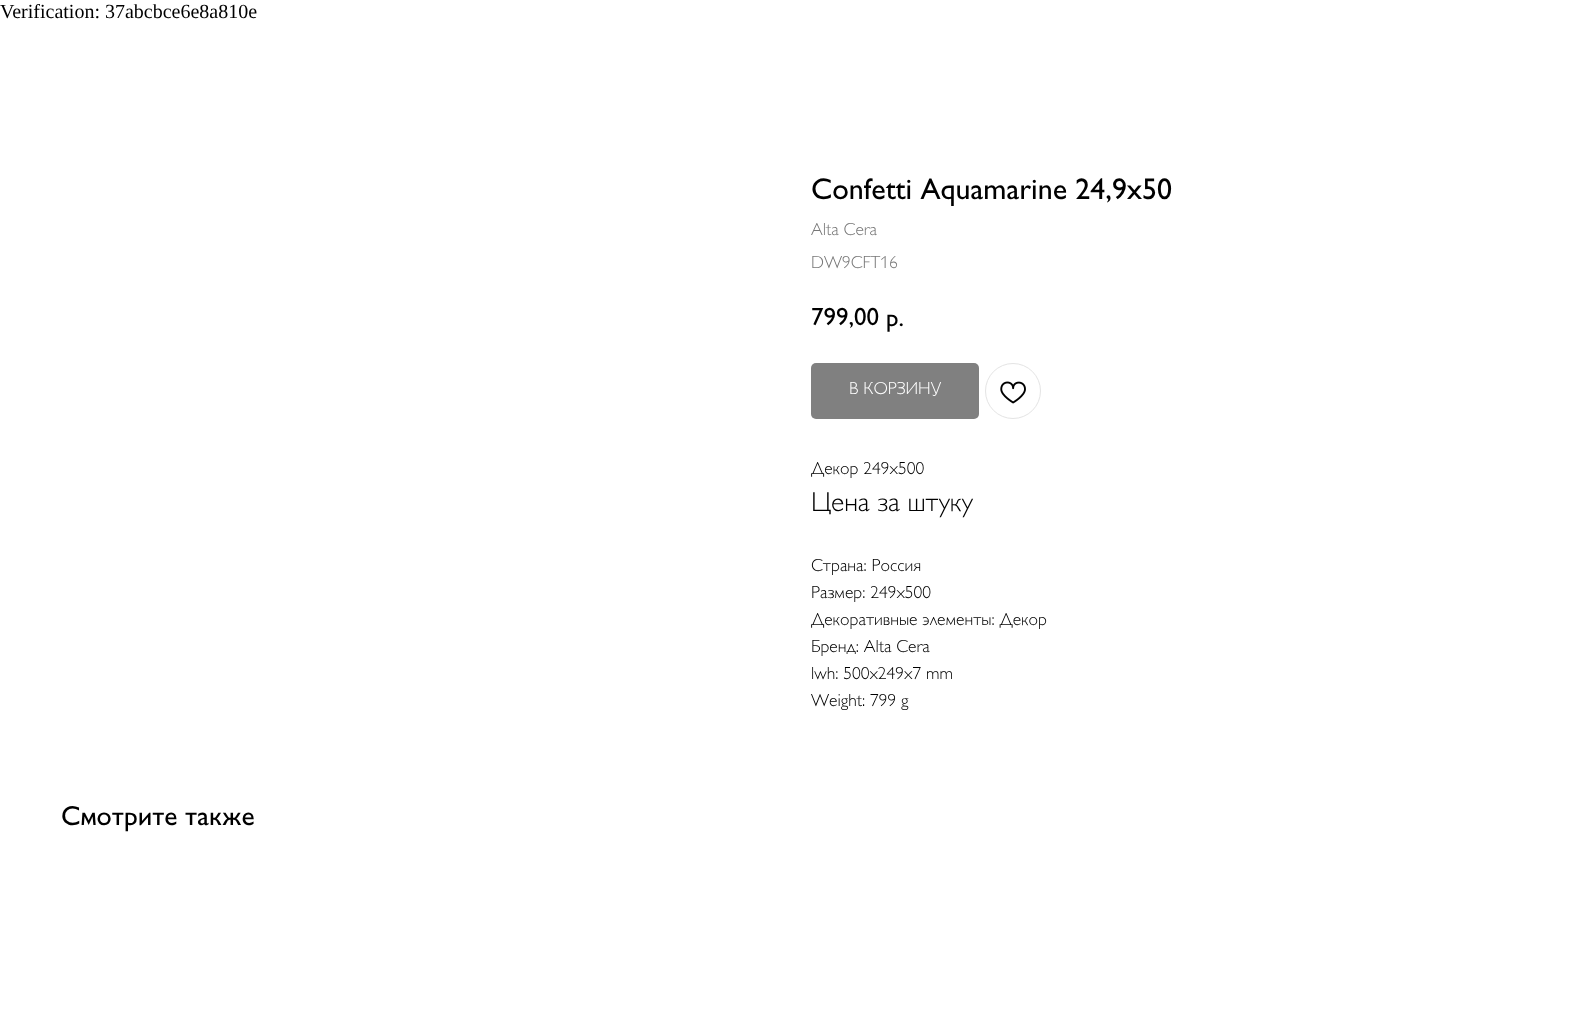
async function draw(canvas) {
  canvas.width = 1572;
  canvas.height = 1021;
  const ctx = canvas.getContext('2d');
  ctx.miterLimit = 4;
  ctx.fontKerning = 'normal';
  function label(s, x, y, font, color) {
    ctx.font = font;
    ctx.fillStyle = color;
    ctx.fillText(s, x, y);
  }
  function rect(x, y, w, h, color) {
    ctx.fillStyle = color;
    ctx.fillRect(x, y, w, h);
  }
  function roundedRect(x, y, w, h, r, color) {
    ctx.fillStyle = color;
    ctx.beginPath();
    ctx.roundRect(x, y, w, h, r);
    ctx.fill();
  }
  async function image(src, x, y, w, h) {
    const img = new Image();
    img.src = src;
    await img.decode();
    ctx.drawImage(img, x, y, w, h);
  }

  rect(0, 0, 1572, 1021, '#fff');
  label('Verification: 37abcbce6e8a810e', 0, 18, '20px Liberation Serif', '#000');
  label('Confetti Aquamarine 24,9x50', 811, 199, '30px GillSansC', '#000');
  label('Alta Cera', 811, 235, '300 17.5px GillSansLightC', '#777');
  label('DW9CFT16', 811, 268, '300 17.5px GillSansLightC', '#777');
  label('799,00', 811, 325, '25px GillSansC', '#000');
  label('р.', 886, 326, '25px GillSansC', '#000');
  roundedRect(811, 363, 168, 56, 5, '#808080');
  label('В КОРЗИНУ', 849, 394, '300 17.5px GillSansLightC', '#fff');
  ctx.beginPath();
  ctx.arc(1013, 391, 27.5, 0, 2 * Math.PI);
  ctx.strokeStyle = '#e4e4e4';
  ctx.stroke();
  await image('assets/img1.png', 1000, 381, 26, 23);
  label('Декор 249x500', 811, 474, '300 17.5px GillSansLightC', '#000');
  label('Цена за штуку', 811, 511, '300 27.5px GillSansLightC', '#000');
  label('Страна: Россия', 811, 571, '300 17.5px GillSansLightC', '#000');
  label('Размер: 249x500', 811, 598, '300 17.5px GillSansLightC', '#000');
  label('Декоративные элементы: Декор', 811, 625, '300 17.5px GillSansLightC', '#000');
  label('Бренд: Alta Cera', 811, 652, '300 17.5px GillSansLightC', '#000');
  label('lwh: 500x249x7 mm', 811, 679, '300 17.5px GillSansLightC', '#000');
  label('Weight: 799 g', 811, 706, '300 17.5px GillSansLightC', '#000');
  label('Смотрите также', 61, 825, '27.5px GillSansC', '#000');
}

draw(document.querySelector('canvas'));
